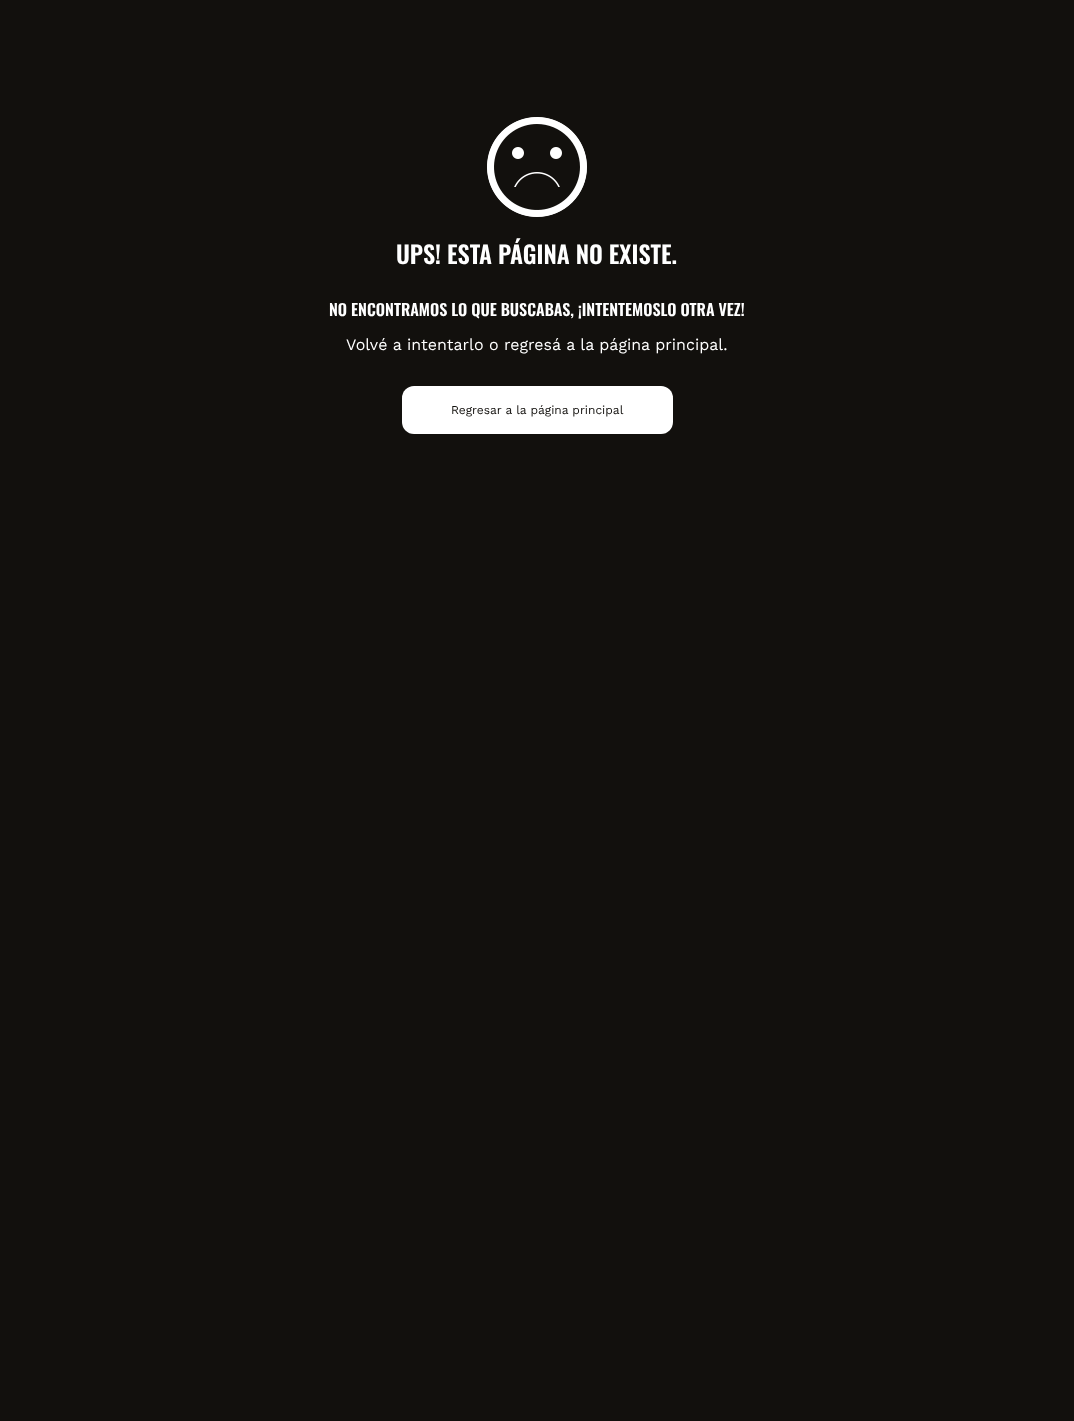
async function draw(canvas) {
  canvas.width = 1074;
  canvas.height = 1421;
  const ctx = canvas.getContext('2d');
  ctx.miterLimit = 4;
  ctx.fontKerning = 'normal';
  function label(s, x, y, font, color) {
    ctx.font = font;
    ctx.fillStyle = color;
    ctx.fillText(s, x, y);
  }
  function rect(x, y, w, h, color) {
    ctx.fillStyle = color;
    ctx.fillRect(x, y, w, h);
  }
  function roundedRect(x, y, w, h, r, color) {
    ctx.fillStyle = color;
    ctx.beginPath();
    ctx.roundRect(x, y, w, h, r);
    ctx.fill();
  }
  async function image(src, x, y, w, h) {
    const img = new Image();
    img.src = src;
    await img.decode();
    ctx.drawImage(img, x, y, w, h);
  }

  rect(0, 0, 1074, 1421, '#12100d');
  await image('assets/img1.png', 487, 117, 100, 100);
  label('UPS! ESTA PÁGINA NO EXISTE.', 396, 264, '600 24px Oswald', '#fff');
  label('NO ENCONTRAMOS LO QUE BUSCABAS, ¡INTENTEMOSLO OTRA VEZ!', 329, 316, '600 16px Oswald', '#fff');
  label('Volvé a intentarlo o regresá a la página principal.', 346, 350, '16px Work Sans', '#fff');
  roundedRect(402, 386, 271, 48, 12, '#fff');
  label('Regresar a la página principal', 451, 414, '12px Work Sans', '#12100d');
}

draw(document.querySelector('canvas'));
